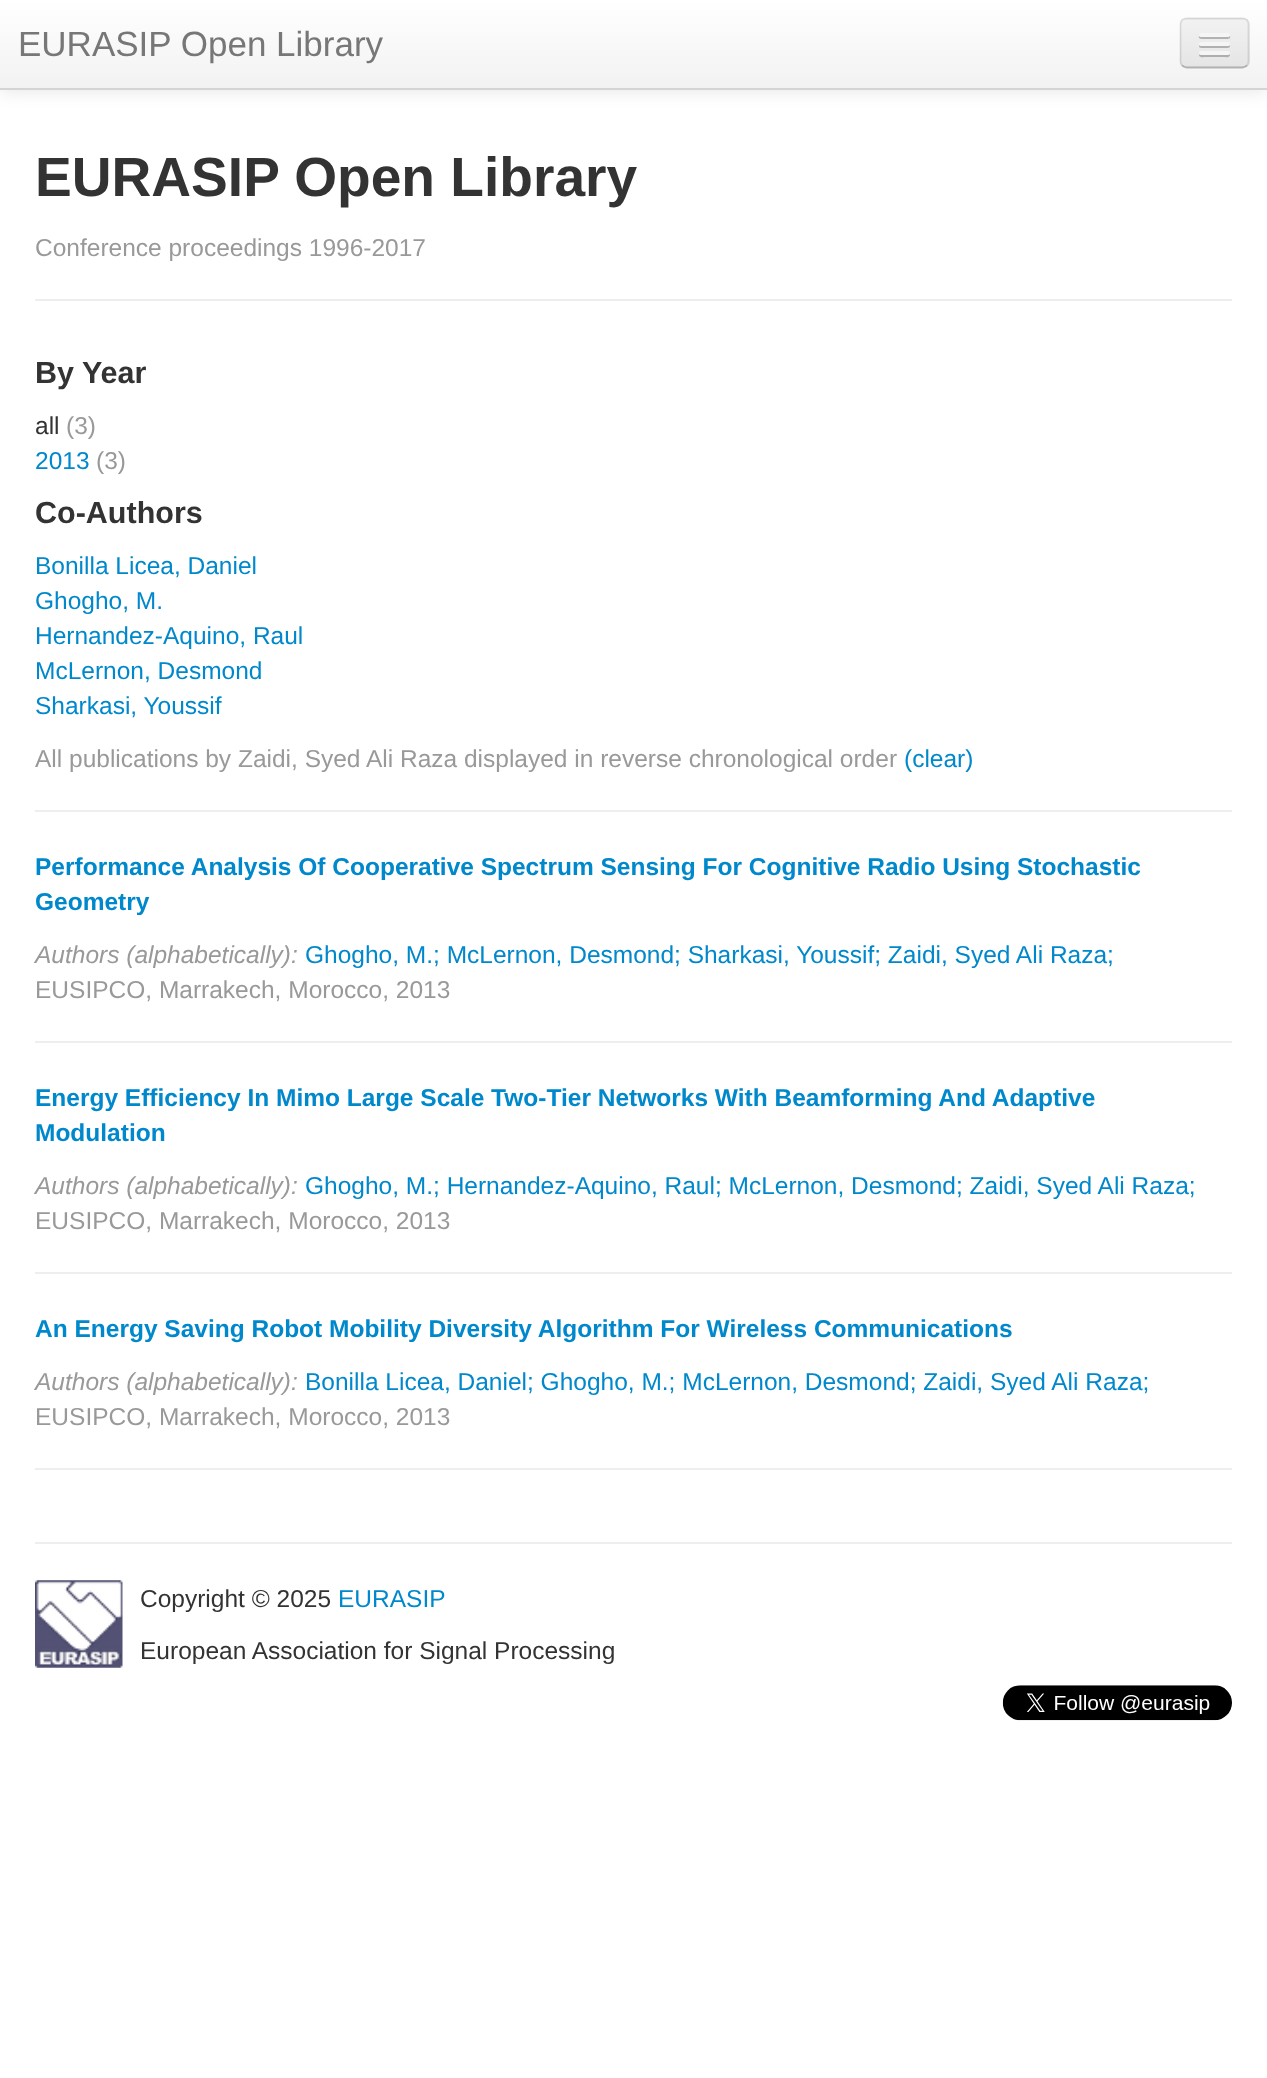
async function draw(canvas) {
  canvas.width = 1267;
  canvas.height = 2078;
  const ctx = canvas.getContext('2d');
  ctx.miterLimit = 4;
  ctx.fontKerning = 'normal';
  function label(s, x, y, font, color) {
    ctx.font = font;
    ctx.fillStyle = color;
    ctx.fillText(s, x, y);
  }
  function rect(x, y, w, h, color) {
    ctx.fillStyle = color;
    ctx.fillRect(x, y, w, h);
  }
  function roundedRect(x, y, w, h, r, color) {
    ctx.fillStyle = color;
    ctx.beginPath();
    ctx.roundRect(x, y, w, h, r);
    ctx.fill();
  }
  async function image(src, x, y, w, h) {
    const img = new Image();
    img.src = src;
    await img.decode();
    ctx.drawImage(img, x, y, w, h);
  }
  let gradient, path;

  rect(0, 0, 1267, 2078, '#fff');
  ctx.fillStyle = '#0000001a';
  ctx.filter = 'blur(9px)';
  ctx.beginPath();
  ctx.rect(0, 2, 1267, 89);
  ctx.fill();
  ctx.filter = 'none';
  gradient = ctx.createLinearGradient(634, 0, 634, 88);
  gradient.addColorStop(0, '#fff');
  gradient.addColorStop(1, '#f2f2f2');
  ctx.fillStyle = gradient;
  ctx.fillRect(0, 0, 1267, 88);
  rect(0, 88, 1267, 2, '#d4d4d4');
  label('EURASIP Open Library', 18, 56, '35px Liberation Sans', '#777');
  roundedRect(1180, 18, 70, 50, 7, '#ededed');
  ctx.save();
  ctx.beginPath();
  ctx.roundRect(1180, 18, 70, 50, 7);
  ctx.clip();
  gradient = ctx.createLinearGradient(1215, 19, 1215, 67);
  gradient.addColorStop(0, '#f2f2f2');
  gradient.addColorStop(1, '#e5e5e5');
  ctx.fillStyle = gradient;
  ctx.fillRect(1180, 19, 70, 48);
  ctx.restore();
  path = new Path2D('M1247 65.5C1245.5 66.5 1244 67.5 1242.5 67.5H1186.5C1185 67.5 1183.5 66.5 1182 65.5');
  ctx.strokeStyle = '#00000040';
  ctx.lineWidth = 1.8;
  ctx.stroke(path);
  path = new Path2D('M1182 65.5C1181 64.5 1180.5 63 1180.5 61V24.5C1180.5 23 1181 21.5 1182 20C1183.5 19 1185 18.5 1186.5 18.5H1242.5C1244 18.5 1245.5 19 1247 20C1248 21.5 1248.5 23 1248.5 24.5V61C1248.5 63 1248 64.5 1247 65.5');
  ctx.strokeStyle = '#0000001a';
  ctx.stroke(path);
  ctx.fillStyle = '#b2b2b2';
  path = new Path2D('M1199 36C1197.5 40 1204.5 39 1205.5 39H1223.5C1224.5 39 1231.5 40 1230 36L1228.5 36.5H1200.5Z');
  ctx.fill(path);
  roundedRect(1199, 33, 31, 4, 2, '#f5f5f5');
  ctx.fillStyle = '#b0b0b0';
  path = new Path2D('M1199.5 45C1197 49 1205 48 1205.5 48H1223.5C1224 48 1232 49 1229.5 45L1228.5 45.5H1200.5Z');
  ctx.fill(path);
  roundedRect(1199, 42, 31, 4, 2, '#f5f5f5');
  ctx.fillStyle = '#aeaeae';
  path = new Path2D('M1199.5 54L1199 55.5C1199.5 58 1204.5 57 1205.5 57H1223.5C1224.5 57 1229.5 58 1230 55.5L1229.5 54C1228.5 54.5 1200.5 54.5 1199.5 54Z');
  ctx.fill(path);
  roundedRect(1199, 51, 31, 4, 2, '#f5f5f5');
  label('EURASIP Open Library', 35, 196, 'bold 55.1px Liberation Sans', '#333');
  label('Conference proceedings 1996-2017', 35, 256, '24.5px Liberation Sans', '#999');
  rect(35, 299, 1197, 2, '#eee');
  label('By Year', 35, 383, 'bold 30.5px Liberation Sans', '#333');
  label('all', 35, 434, '24.5px Liberation Sans', '#333');
  label('(3)', 66, 434, '24.5px Liberation Sans', '#999');
  label('2013', 35, 469, '24.5px Liberation Sans', '#08c');
  label('(3)', 96, 469, '24.5px Liberation Sans', '#999');
  label('Co-Authors', 35, 523, 'bold 30.5px Liberation Sans', '#333');
  label('Bonilla Licea, Daniel', 35, 574, '24.5px Liberation Sans', '#08c');
  label('Ghogho, M.', 35, 609, '24.5px Liberation Sans', '#08c');
  label('Hernandez-Aquino, Raul', 35, 644, '24.5px Liberation Sans', '#08c');
  label('McLernon, Desmond', 35, 679, '24.5px Liberation Sans', '#08c');
  label('Sharkasi, Youssif', 35, 714, '24.5px Liberation Sans', '#08c');
  label('All publications by Zaidi, Syed Ali Raza displayed in reverse chronological order', 35, 767, '24.5px Liberation Sans', '#999');
  label('(clear)', 904, 767, '24.5px Liberation Sans', '#08c');
  rect(35, 810, 1197, 2, '#eee');
  label('Performance Analysis Of Cooperative Spectrum Sensing For Cognitive Radio Using Stochastic', 35, 875, 'bold 24.5px Liberation Sans', '#08c');
  label('Geometry', 35, 910, 'bold 24.5px Liberation Sans', '#08c');
  label('Authors (alphabetically):', 35, 963, 'italic 24.5px Liberation Sans', '#999');
  label('Ghogho, M.; McLernon, Desmond; Sharkasi, Youssif; Zaidi, Syed Ali Raza;', 305, 963, '24.5px Liberation Sans', '#08c');
  label('EUSIPCO, Marrakech, Morocco, 2013', 35, 998, '24.5px Liberation Sans', '#999');
  rect(35, 1041, 1197, 2, '#eee');
  label('Energy Efficiency In Mimo Large Scale Two-Tier Networks With Beamforming And Adaptive', 35, 1106, 'bold 24.5px Liberation Sans', '#08c');
  label('Modulation', 35, 1141, 'bold 24.5px Liberation Sans', '#08c');
  label('Authors (alphabetically):', 35, 1194, 'italic 24.5px Liberation Sans', '#999');
  label('Ghogho, M.; Hernandez-Aquino, Raul; McLernon, Desmond; Zaidi, Syed Ali Raza;', 305, 1194, '24.5px Liberation Sans', '#08c');
  label('EUSIPCO, Marrakech, Morocco, 2013', 35, 1229, '24.5px Liberation Sans', '#999');
  rect(35, 1272, 1197, 2, '#eee');
  label('An Energy Saving Robot Mobility Diversity Algorithm For Wireless Communications', 35, 1337, 'bold 24.5px Liberation Sans', '#08c');
  label('Authors (alphabetically):', 35, 1390, 'italic 24.5px Liberation Sans', '#999');
  label('Bonilla Licea, Daniel; Ghogho, M.; McLernon, Desmond; Zaidi, Syed Ali Raza;', 305, 1390, '24.5px Liberation Sans', '#08c');
  label('EUSIPCO, Marrakech, Morocco, 2013', 35, 1425, '24.5px Liberation Sans', '#999');
  rect(35, 1468, 1197, 2, '#eee');
  rect(35, 1542, 1197, 2, '#eee');
  await image('assets/img1.png', 35, 1580, 88, 88);
  label('Copyright © 2025', 140, 1607, '24.5px Liberation Sans', '#333');
  label('EURASIP', 338, 1607, '24.5px Liberation Sans', '#08c');
  label('European Association for Signal Processing', 140, 1659, '24.5px Liberation Sans', '#333');
  await image('assets/img2.png', 1002, 1685, 230, 36);
}

draw(document.querySelector('canvas'));
